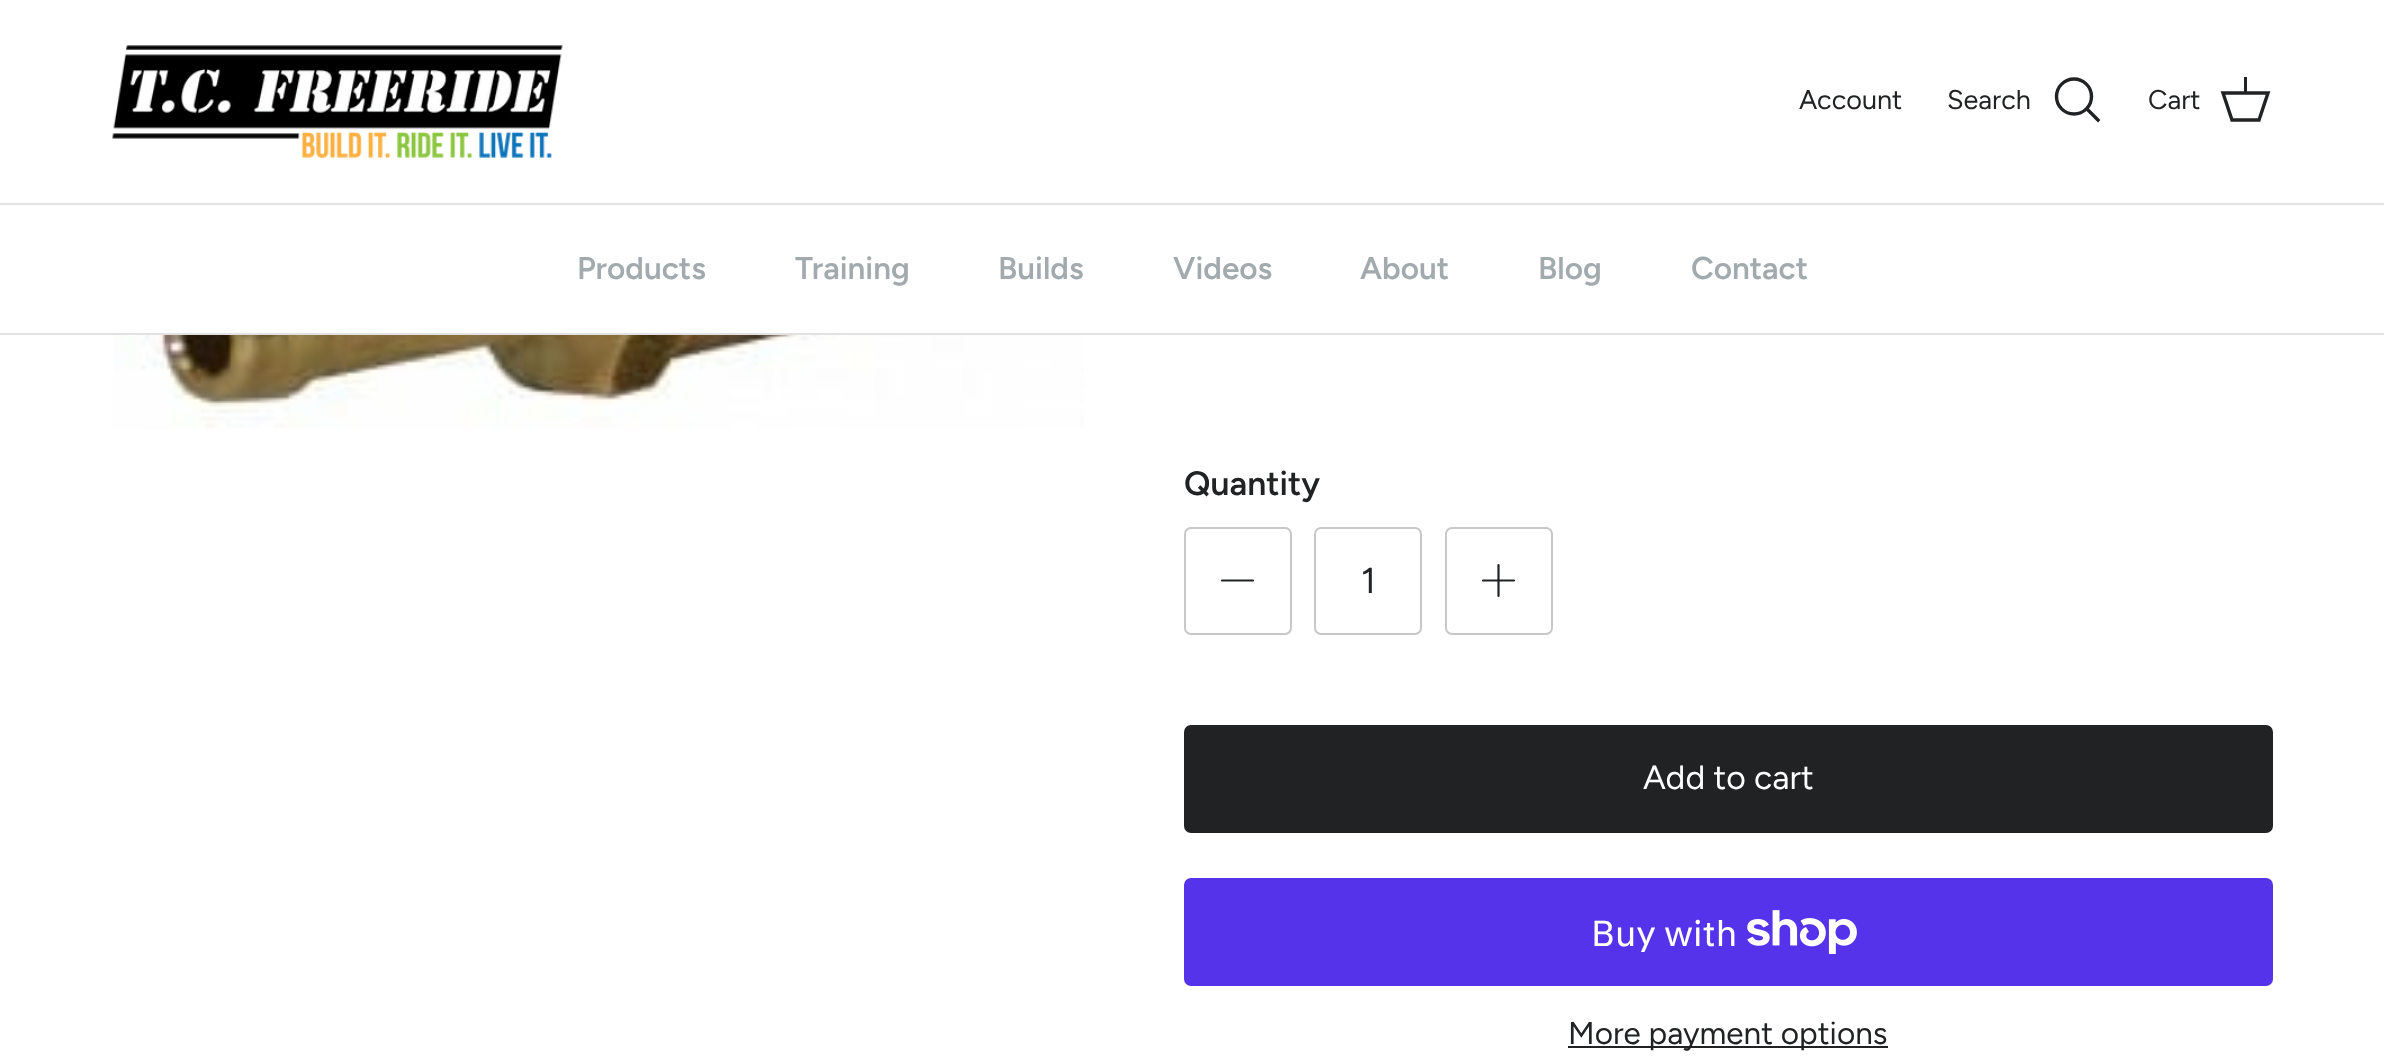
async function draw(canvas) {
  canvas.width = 2384;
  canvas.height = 1056;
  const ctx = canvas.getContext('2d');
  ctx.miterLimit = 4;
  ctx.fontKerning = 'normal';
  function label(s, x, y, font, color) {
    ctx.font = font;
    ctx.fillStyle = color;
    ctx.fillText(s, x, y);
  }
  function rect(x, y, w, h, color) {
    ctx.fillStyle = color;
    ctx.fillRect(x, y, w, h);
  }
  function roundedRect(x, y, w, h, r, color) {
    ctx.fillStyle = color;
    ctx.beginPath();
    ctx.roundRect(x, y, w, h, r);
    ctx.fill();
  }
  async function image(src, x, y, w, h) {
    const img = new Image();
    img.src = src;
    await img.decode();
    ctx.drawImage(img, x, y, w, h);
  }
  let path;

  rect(0, 0, 2384, 1056, '#fff');
  rect(0, 203, 2384, 2, '#e2e2e2');
  await image('assets/img1.png', 112, 45, 451, 113);
  label('Account', 1799, 109, '27px Figtree', '#202223');
  label('Search', 1947, 109, '27px Figtree', '#202223');
  ctx.beginPath();
  ctx.arc(2074, 96.5, 17.5, 0, 2 * Math.PI);
  ctx.strokeStyle = '#202223';
  ctx.lineWidth = 3.4;
  ctx.stroke();
  path = new Path2D('M2088 110L2098 120');
  ctx.lineCap = 'square';
  ctx.stroke(path);
  label('Cart', 2148, 109, '27px Figtree', '#202223');
  path = new Path2D('M2223 93H2268L2259 120H2232Z');
  ctx.lineCap = 'butt';
  ctx.stroke(path);
  rect(2244, 77, 3, 17, '#202223');
  rect(0, 333, 2384, 2, '#e2e2e2');
  label('Products', 577, 279, '600 31.5px Figtree', '#a2aaad');
  label('Training', 795, 279, '600 31.5px Figtree', '#a2aaad');
  label('Builds', 998, 279, '600 31.5px Figtree', '#a2aaad');
  label('Videos', 1173, 279, '600 31.5px Figtree', '#a2aaad');
  label('About', 1360, 279, '600 31.5px Figtree', '#a2aaad');
  label('Blog', 1538, 279, '600 31.5px Figtree', '#a2aaad');
  label('Contact', 1691, 279, '600 31.5px Figtree', '#a2aaad');
  await image('assets/img2.png', 113, 335, 971, 94);
  label('Quantity', 1184, 495, '600 33.75px Figtree', '#202223');
  ctx.beginPath();
  ctx.roundRect(1185, 528, 106, 106, 6);
  ctx.strokeStyle = '#c7c8c8';
  ctx.lineWidth = 2;
  ctx.stroke();
  path = new Path2D('M1222 580.5H1253');
  ctx.strokeStyle = '#202223';
  ctx.lineWidth = 2.2;
  ctx.lineCap = 'round';
  ctx.lineJoin = 'round';
  ctx.stroke(path);
  ctx.beginPath();
  ctx.roundRect(1315, 528, 106, 106, 6);
  ctx.strokeStyle = '#c7c8c8';
  ctx.lineWidth = 2;
  ctx.lineJoin = 'miter';
  ctx.stroke();
  label('1', 1361, 593, '36px Figtree', '#202223');
  ctx.beginPath();
  ctx.roundRect(1446, 528, 106, 106, 6);
  ctx.stroke();
  path = new Path2D('M1498.5 565V596M1483 580.5H1514');
  ctx.strokeStyle = '#202223';
  ctx.lineWidth = 2.2;
  ctx.lineJoin = 'round';
  ctx.stroke(path);
  ctx.beginPath();
  ctx.roundRect(1185, 726, 1087, 106, 6);
  ctx.fill();
  ctx.lineWidth = 2;
  ctx.lineJoin = 'miter';
  ctx.stroke();
  label('Add to cart', 1643, 789, '33.75px Figtree', '#fff');
  roundedRect(1184, 878, 1089, 108, 7, '#5433eb');
  label('Buy with', 1591, 946, '36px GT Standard', '#fff');
  await image('assets/img3.png', 1747, 910, 110, 44);
  rect(1568, 1046, 320, 2, '#202223');
  label('More payment options', 1568, 1044, '31.5px Figtree', '#202223');
}

draw(document.querySelector('canvas'));
